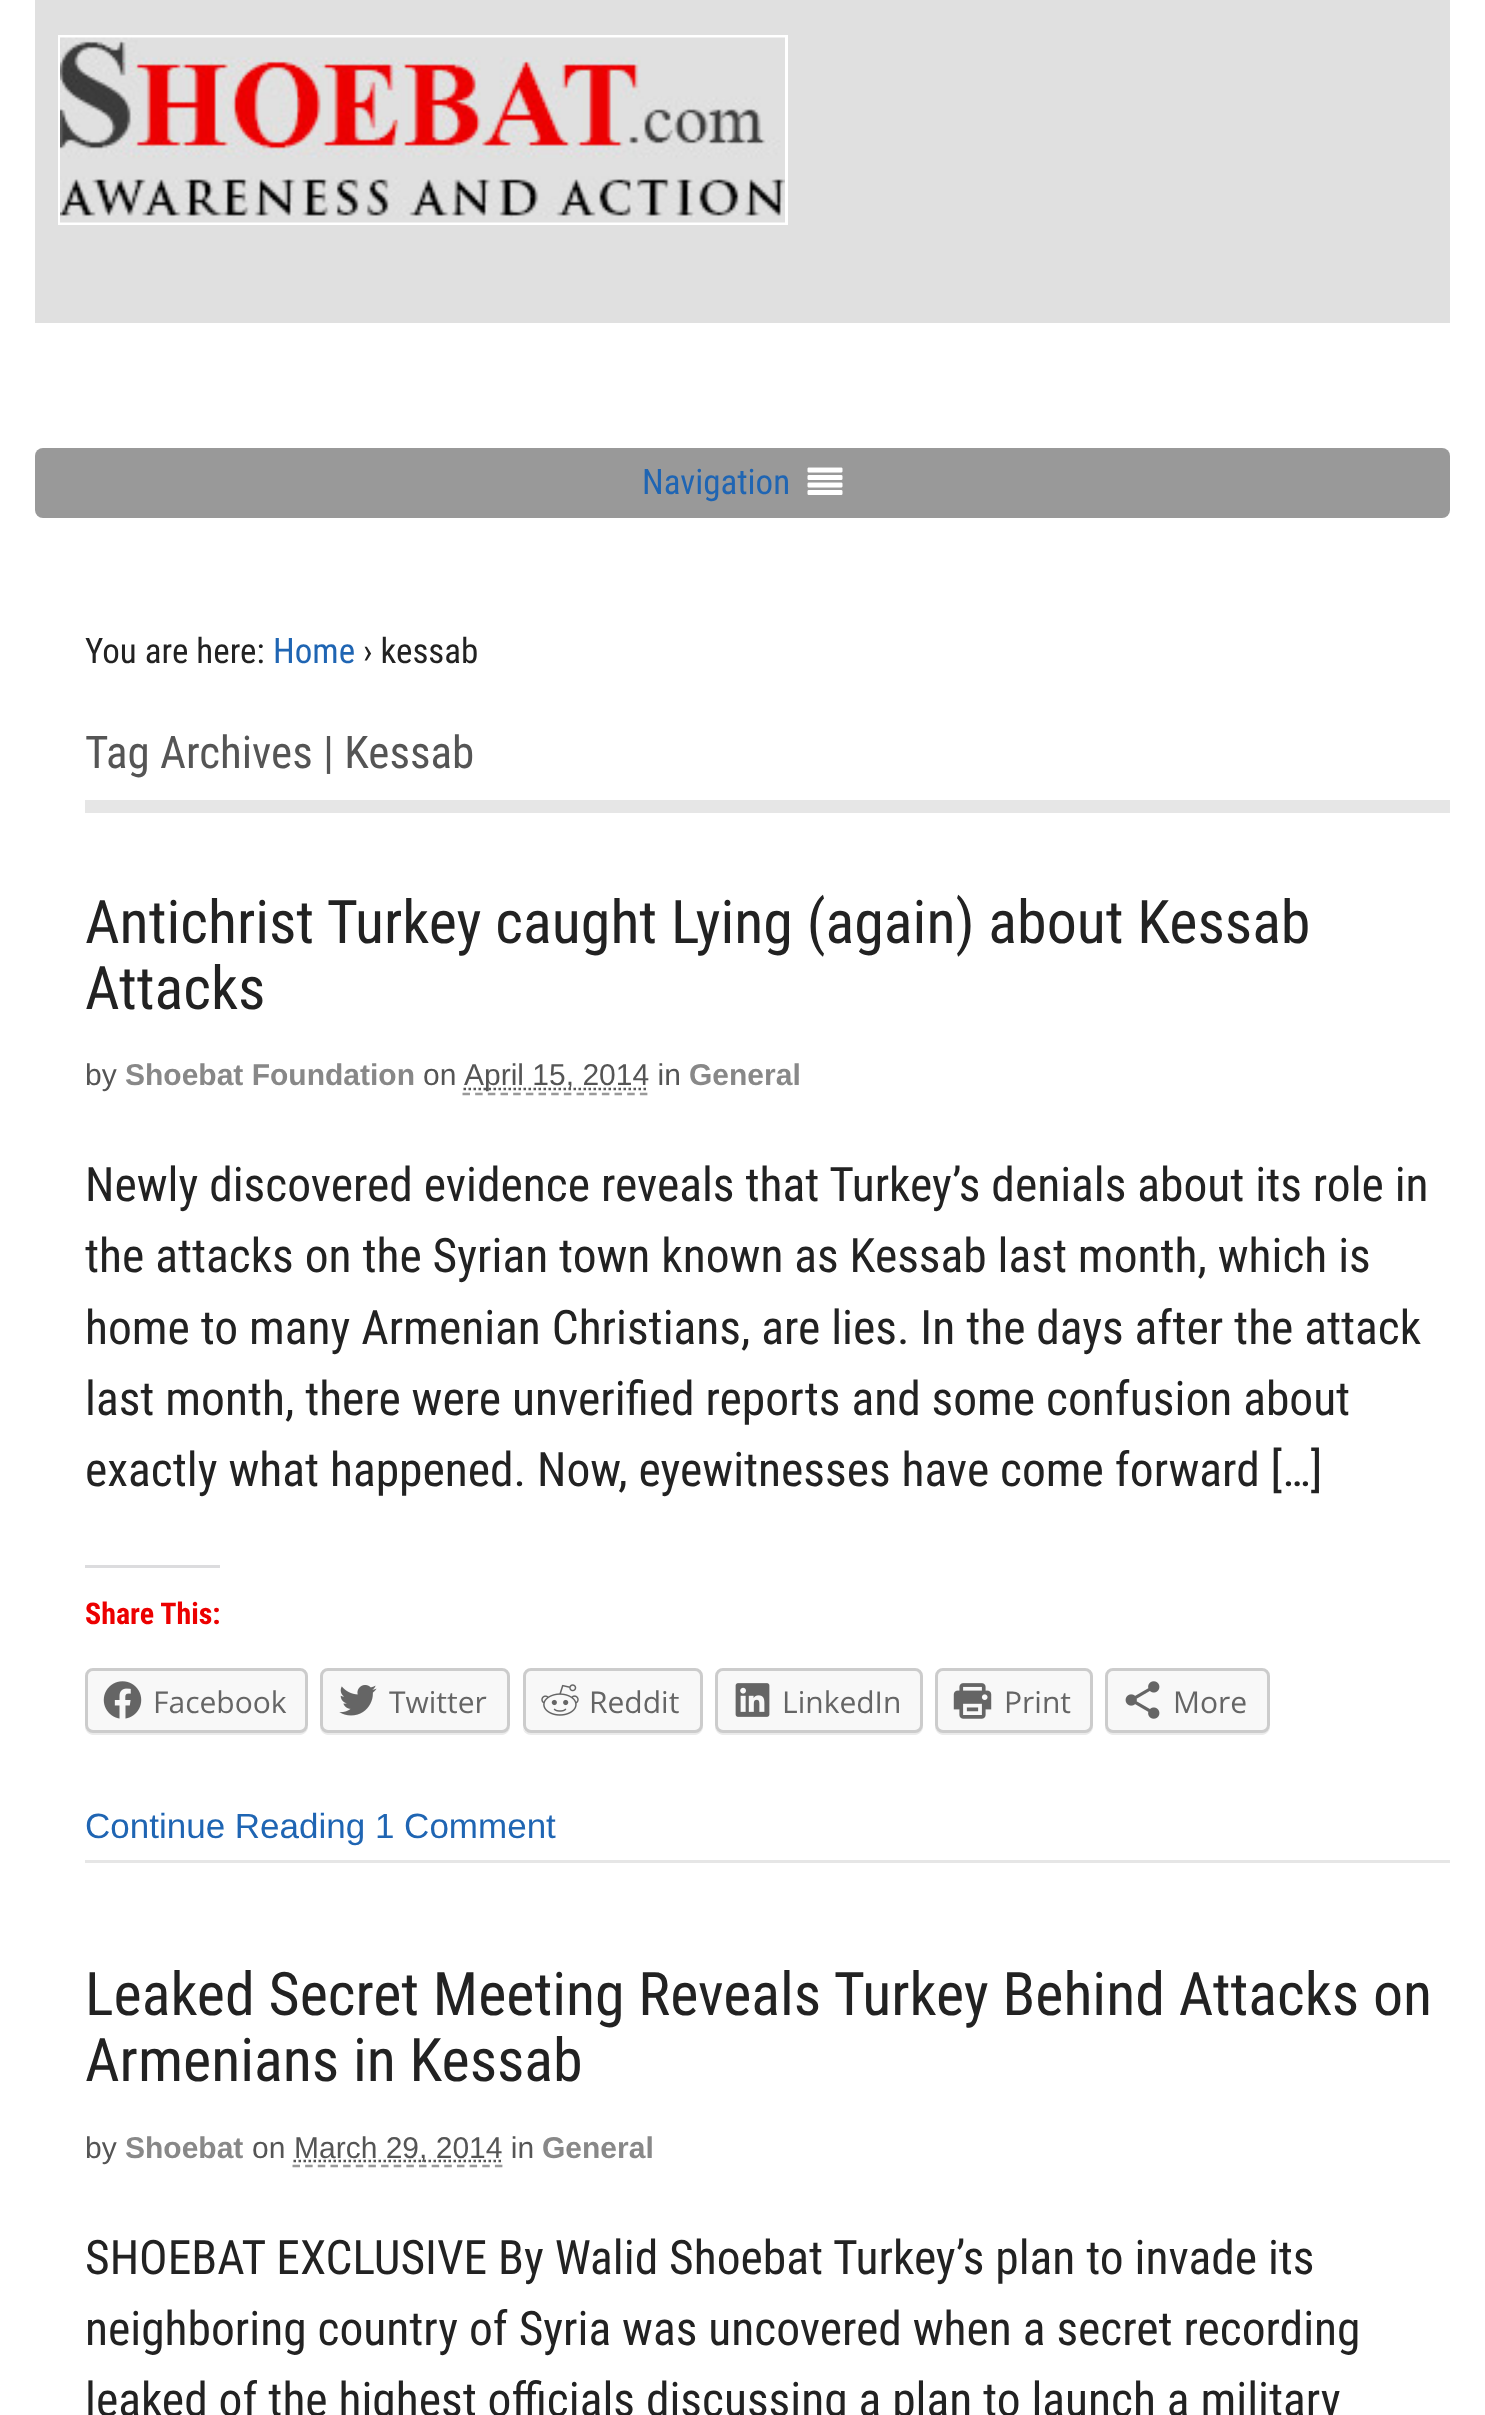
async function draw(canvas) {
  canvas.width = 1485;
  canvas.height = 2415;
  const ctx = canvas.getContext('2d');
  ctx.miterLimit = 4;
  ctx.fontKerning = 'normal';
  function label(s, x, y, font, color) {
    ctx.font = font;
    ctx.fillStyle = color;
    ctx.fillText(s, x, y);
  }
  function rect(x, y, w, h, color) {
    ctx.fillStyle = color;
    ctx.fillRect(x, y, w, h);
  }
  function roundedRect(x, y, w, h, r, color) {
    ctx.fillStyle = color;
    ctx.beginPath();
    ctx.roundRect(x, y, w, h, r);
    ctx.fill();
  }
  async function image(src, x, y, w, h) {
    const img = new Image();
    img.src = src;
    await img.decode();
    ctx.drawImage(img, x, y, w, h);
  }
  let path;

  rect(0, 0, 1485, 2415, '#fff');
  rect(35, 0, 1415, 323, '#e0e0e0');
  await image('assets/img1.png', 58, 35, 730, 190);
  roundedRect(35, 448, 1415, 70, 8, '#999');
  label('Navigation', 642, 494, '35px Roboto Condensed', '#1f65b3');
  await image('assets/img2.png', 807, 467, 36, 28);
  label('You are here:', 85, 663, '35px Roboto Condensed', '#222');
  label('Home', 273, 663, '35px Roboto Condensed', '#1f65b3');
  label('› kessab', 363, 663, '35px Roboto Condensed', '#222');
  rect(85, 800, 1365, 13, '#e6e6e6');
  label('Tag Archives | Kessab', 85, 768, '45px Roboto Condensed', '#555');
  label('Antichrist Turkey caught Lying (again) about Kessab', 85, 943, '60px Roboto Condensed', '#222');
  label('Attacks', 85, 1009, '60px Roboto Condensed', '#222');
  label('by', 85, 1085, '30px Liberation Sans', '#555');
  label('Shoebat Foundation', 125, 1085, 'bold 30px Liberation Sans', '#888');
  label('on', 423, 1085, '30px Liberation Sans', '#555');
  path = new Path2D('M463.5 1089H648.5');
  ctx.strokeStyle = '#555';
  ctx.lineWidth = 2.5;
  ctx.setLineDash([2.5, 2.5]);
  ctx.stroke(path);
  label('April 15, 2014 in', 464, 1085, '30px Liberation Sans', '#555');
  path = new Path2D('M462.5 1094H647.5');
  ctx.strokeStyle = '#999';
  ctx.setLineDash([7.5, 5.17]);
  ctx.stroke(path);
  label('General', 689, 1085, 'bold 30px Liberation Sans', '#888');
  label('Newly discovered evidence reveals that Turkey’s denials about its role in', 85, 1201, '47.5px Roboto Condensed', '#222');
  label('the attacks on the Syrian town known as Kessab last month, which is', 85, 1272, '47.5px Roboto Condensed', '#222');
  label('home to many Armenian Christians, are lies. In the days after the attack', 85, 1344, '47.5px Roboto Condensed', '#222');
  label('last month, there were unverified reports and some confusion about', 85, 1415, '47.5px Roboto Condensed', '#222');
  label('exactly what happened. Now, eyewitnesses have come forward […]', 85, 1486, '47.5px Roboto Condensed', '#222');
  rect(85, 1565, 135, 3, '#dcdcde');
  label('Share This:', 85, 1624, 'bold 30px Roboto Condensed', '#ec0000');
  ctx.fillStyle = '#ebebeb';
  path = new Path2D('M85 1725V1727C85 1731 89 1735 93 1735H300C304 1735 308 1731 308 1727V1678V1675V1725C308 1729 304 1732 300 1732H92C88 1732 85 1729 85 1725Z');
  ctx.fill(path);
  ctx.fillStyle = '#f8f8f8';
  ctx.beginPath();
  ctx.roundRect(86.5, 1669.5, 220, 62, 6.5);
  ctx.fill();
  ctx.strokeStyle = '#ccc';
  ctx.lineWidth = 3;
  ctx.setLineDash([]);
  ctx.stroke();
  await image('assets/img3.png', 103, 1681, 39, 38);
  label('Facebook', 153, 1713, '30px Open Sans', '#656565');
  ctx.fillStyle = '#ebebeb';
  path = new Path2D('M320 1725V1727C320 1731 324 1735 328 1735H502C506 1735 510 1731 510 1727V1725C510 1729 507 1732 502 1732H328C323 1732 320 1729 320 1725Z');
  ctx.fill(path);
  ctx.fillStyle = '#f8f8f8';
  ctx.beginPath();
  ctx.roundRect(321.5, 1669.5, 187, 62, 6.5);
  ctx.fill();
  ctx.stroke();
  await image('assets/img4.png', 339, 1685, 38, 31);
  label('Twitter', 389, 1713, '30px Open Sans', '#656565');
  ctx.fillStyle = '#ebebeb';
  path = new Path2D('M523 1728C523 1732 527 1735 531 1735H695C699 1735 703 1731 703 1727V1678L702 1675V1725C702 1729 699 1732 695 1732H530C527 1732 524 1731 523 1728Z');
  ctx.fill(path);
  ctx.fillStyle = '#f8f8f8';
  ctx.beginPath();
  ctx.roundRect(524.5, 1669.5, 177, 62, 6.5);
  ctx.fill();
  ctx.stroke();
  await image('assets/img5.png', 541, 1684, 38, 32);
  label('Reddit', 589, 1713, '30px Open Sans', '#656565');
  ctx.fillStyle = '#ebebeb';
  path = new Path2D('M715 1725V1727C715 1731 719 1735 723 1735H915C919 1735 923 1731 923 1727V1678L922 1675V1725C922 1729 919 1732 915 1732H722C718 1732 715 1729 715 1725Z');
  ctx.fill(path);
  ctx.fillStyle = '#f8f8f8';
  ctx.beginPath();
  ctx.roundRect(716.5, 1669.5, 205, 62, 6.5);
  ctx.fill();
  ctx.stroke();
  await image('assets/img6.png', 735, 1683, 35, 34);
  label('LinkedIn', 782, 1713, '30px Open Sans', '#656565');
  ctx.fillStyle = '#ebebeb';
  path = new Path2D('M935 1725V1727C935 1731 939 1735 943 1735H1085C1089 1735 1093 1731 1093 1727V1678L1092 1675V1725C1092 1729 1089 1732 1085 1732H942C938 1732 935 1729 935 1725Z');
  ctx.fill(path);
  ctx.fillStyle = '#f8f8f8';
  ctx.beginPath();
  ctx.roundRect(936.5, 1669.5, 155, 62, 6.5);
  ctx.fill();
  ctx.stroke();
  await image('assets/img7.png', 953, 1683, 39, 36);
  label('Print', 1004, 1713, '30px Open Sans', '#656565');
  ctx.fillStyle = '#ebebeb';
  path = new Path2D('M1105 1725V1727C1105 1731 1109 1735 1113 1735H1262C1266 1735 1270 1731 1270 1727V1725C1270 1729 1267 1732 1262 1732H1112C1108 1732 1105 1729 1105 1725Z');
  ctx.fill(path);
  ctx.fillStyle = '#f8f8f8';
  ctx.beginPath();
  ctx.roundRect(1106.5, 1669.5, 162, 62, 6.5);
  ctx.fill();
  ctx.stroke();
  await image('assets/img8.png', 1125, 1681, 35, 38);
  label('More', 1173, 1713, '30px Open Sans', '#656565');
  rect(85, 1860, 1365, 3, '#e6e6e6');
  label('Continue Reading 1 Comment', 85, 1838, '35px Liberation Sans', '#1f65b3');
  label('Leaked Secret Meeting Reveals Turkey Behind Attacks on', 85, 2015, '60px Roboto Condensed', '#222');
  label('Armenians in Kessab', 85, 2081, '60px Roboto Condensed', '#222');
  label('by', 85, 2158, '30px Liberation Sans', '#555');
  label('Shoebat', 125, 2158, 'bold 30px Liberation Sans', '#888');
  label('on', 252, 2158, '30px Liberation Sans', '#555');
  path = new Path2D('M293.5 2161H502');
  ctx.strokeStyle = '#555';
  ctx.lineWidth = 2.5;
  ctx.setLineDash([2.5, 2.5]);
  ctx.stroke(path);
  label('March 29, 2014 in', 294, 2158, '30px Liberation Sans', '#555');
  path = new Path2D('M292.5 2166H502.5');
  ctx.strokeStyle = '#999';
  ctx.setLineDash([7.5, 5.15]);
  ctx.stroke(path);
  label('General', 542, 2158, 'bold 30px Liberation Sans', '#888');
  label('SHOEBAT EXCLUSIVE By Walid Shoebat Turkey’s plan to invade its', 85, 2274, '47.5px Roboto Condensed', '#222');
  label('neighboring country of Syria was uncovered when a secret recording', 85, 2345, '47.5px Roboto Condensed', '#222');
  label('leaked of the highest officials discussing a plan to launch a military', 85, 2416, '47.5px Roboto Condensed', '#222');
}

draw(document.querySelector('canvas'));
